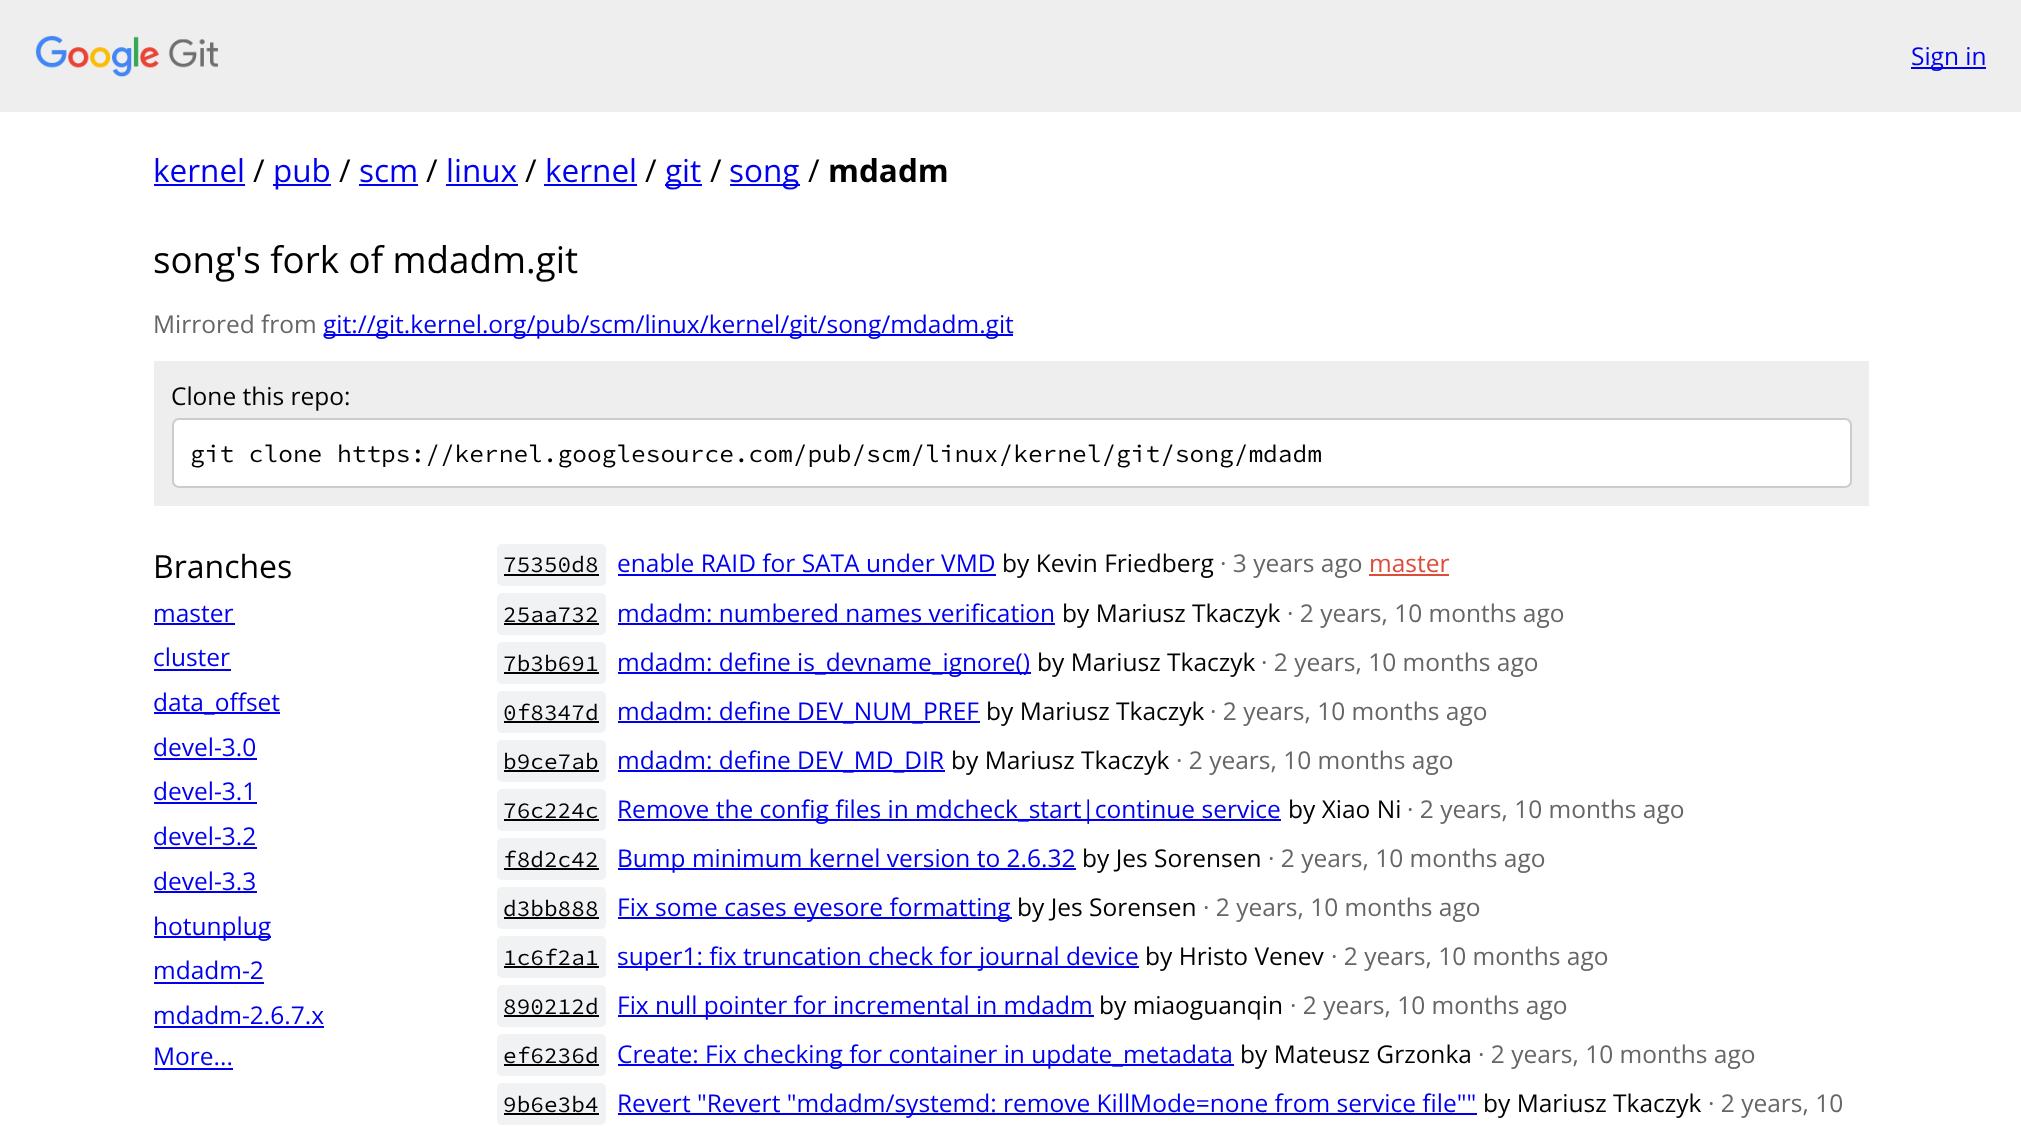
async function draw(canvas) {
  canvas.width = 2021;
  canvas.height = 1127;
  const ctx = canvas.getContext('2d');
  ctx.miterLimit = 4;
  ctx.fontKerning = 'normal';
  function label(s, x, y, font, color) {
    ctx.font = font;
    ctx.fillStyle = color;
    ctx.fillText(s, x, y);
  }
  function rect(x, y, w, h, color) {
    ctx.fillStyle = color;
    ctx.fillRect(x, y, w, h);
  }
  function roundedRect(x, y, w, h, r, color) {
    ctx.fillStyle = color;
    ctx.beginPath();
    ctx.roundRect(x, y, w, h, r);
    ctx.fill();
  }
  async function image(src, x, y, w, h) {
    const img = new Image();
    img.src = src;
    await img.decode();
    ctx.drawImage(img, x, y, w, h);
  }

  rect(0, 0, 2021, 1127, '#fff');
  rect(0, 0, 2021, 112, '#eee');
  await image('assets/img1.png', 35, 35, 183, 42);
  rect(1911, 67, 75, 2, '#00e');
  label('Sign in', 1911, 65, '24.5px Open Sans', '#00e');
  label('kernel', 153, 182, '31.5px Open Sans', '#00e');
  rect(154, 184, 91, 2, '#00e');
  label('/', 253, 182, '31.5px Open Sans', '#000');
  rect(273, 184, 58, 2, '#00e');
  label('pub', 273, 182, '31.5px Open Sans', '#00e');
  label('/', 339, 182, '31.5px Open Sans', '#000');
  label('scm', 359, 182, '31.5px Open Sans', '#00e');
  rect(359, 184, 59, 2, '#00e');
  label('/', 426, 182, '31.5px Open Sans', '#000');
  label('linux', 446, 182, '31.5px Open Sans', '#00e');
  rect(446, 184, 72, 2, '#00e');
  label('/', 525, 182, '31.5px Open Sans', '#000');
  label('kernel', 545, 182, '31.5px Open Sans', '#00e');
  rect(544, 184, 93, 2, '#00e');
  label('/', 645, 182, '31.5px Open Sans', '#000');
  rect(665, 184, 37, 2, '#00e');
  label('git', 665, 182, '31.5px Open Sans', '#00e');
  label('/', 710, 182, '31.5px Open Sans', '#000');
  rect(730, 184, 70, 2, '#00e');
  label('song', 729, 182, '31.5px Open Sans', '#00e');
  label('/', 808, 182, '31.5px Open Sans', '#000');
  label('mdadm', 828, 182, 'bold 31.5px Open Sans', '#000');
  label('song\'s fork of mdadm.git', 153, 273, '36.75px Open Sans', '#000');
  label('Mirrored from', 153, 333, '24.5px Open Sans', '#666');
  rect(324, 334, 689, 2, '#00e');
  label('git://git.kernel.org/pub/scm/linux/kernel/git/song/mdadm.git', 323, 333, '24.5px Open Sans', '#00e');
  rect(154, 361, 1715, 145, '#eee');
  label('Clone this repo:', 171, 405, '24.5px Open Sans', '#000');
  ctx.fillStyle = '#fff';
  ctx.beginPath();
  ctx.roundRect(173, 419, 1678, 68, 6);
  ctx.fill();
  ctx.strokeStyle = '#ccc';
  ctx.lineWidth = 2;
  ctx.stroke();
  label('git clone https://kernel.googlesource.com/pub/scm/linux/kernel/git/song/mdadm', 190, 462, '200 24.5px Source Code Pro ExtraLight', '#000');
  label('Branches', 153, 578, '32px Open Sans', '#000');
  label('master', 153, 622, '24.5px Open Sans', '#00e');
  rect(154, 623, 81, 2, '#00e');
  label('cluster', 153, 666, '24.5px Open Sans', '#00e');
  rect(154, 669, 77, 2, '#00e');
  rect(154, 712, 126, 2, '#00e');
  label('data_offset', 153, 711, '24.5px Open Sans', '#00e');
  label('devel-3.0', 153, 756, '24.5px Open Sans', '#00e');
  rect(154, 758, 103, 2, '#00e');
  label('devel-3.1', 153, 800, '24.5px Open Sans', '#00e');
  rect(154, 802, 103, 2, '#00e');
  label('devel-3.2', 153, 845, '24.5px Open Sans', '#00e');
  rect(154, 847, 103, 2, '#00e');
  label('devel-3.3', 153, 890, '24.5px Open Sans', '#00e');
  rect(154, 891, 103, 2, '#00e');
  rect(154, 936, 117, 2, '#00e');
  label('hotunplug', 153, 935, '24.5px Open Sans', '#00e');
  label('mdadm-2', 153, 979, '24.5px Open Sans', '#00e');
  rect(154, 982, 110, 2, '#00e');
  label('mdadm-2.6.7.x', 153, 1024, '24.5px Open Sans', '#00e');
  rect(154, 1026, 170, 2, '#00e');
  label('More...', 153, 1065, '24.5px Open Sans', '#00e');
  rect(154, 1068, 79, 2, '#00e');
  roundedRect(497, 544, 109, 42, 5, '#f1f2f3');
  label('75350d8', 503, 572, '200 22.75px Source Code Pro ExtraLight', '#000');
  rect(504, 574, 95, 2, '#000');
  label('enable RAID for SATA under VMD', 617, 572, '24.5px Open Sans', '#00e');
  rect(618, 574, 378, 2, '#00e');
  label('by Kevin Friedberg', 1002, 572, '24.5px Open Sans', '#000');
  label('· 3 years ago', 1220, 572, '24.5px Open Sans', '#666');
  label('master', 1369, 572, '24.5px Open Sans', '#dd4b39');
  rect(1369, 574, 80, 2, '#dd4b39');
  roundedRect(497, 593, 109, 42, 5, '#f1f2f3');
  label('25aa732', 503, 622, '200 22.75px Source Code Pro ExtraLight', '#000');
  rect(504, 623, 95, 2, '#000');
  label('mdadm: numbered names verification', 617, 622, '24.5px Open Sans', '#00e');
  rect(618, 623, 437, 2, '#00e');
  label('by Mariusz Tkaczyk', 1062, 622, '24.5px Open Sans', '#000');
  label('· 2 years, 10 months ago', 1287, 622, '24.5px Open Sans', '#666');
  roundedRect(497, 642, 109, 42, 5, '#f1f2f3');
  label('7b3b691', 503, 671, '200 22.75px Source Code Pro ExtraLight', '#000');
  rect(504, 672, 95, 2, '#000');
  rect(618, 672, 413, 2, '#00e');
  label('mdadm: define is_devname_ignore()', 617, 671, '24.5px Open Sans', '#00e');
  label('by Mariusz Tkaczyk', 1037, 671, '24.5px Open Sans', '#000');
  label('· 2 years, 10 months ago', 1261, 671, '24.5px Open Sans', '#666');
  roundedRect(497, 691, 109, 42, 5, '#f1f2f3');
  label('0f8347d', 503, 720, '200 22.75px Source Code Pro ExtraLight', '#000');
  rect(504, 721, 95, 2, '#000');
  rect(618, 721, 362, 2, '#00e');
  label('mdadm: define DEV_NUM_PREF', 617, 720, '24.5px Open Sans', '#00e');
  label('by Mariusz Tkaczyk', 986, 720, '24.5px Open Sans', '#000');
  label('· 2 years, 10 months ago', 1210, 720, '24.5px Open Sans', '#666');
  roundedRect(497, 740, 109, 42, 5, '#f1f2f3');
  label('b9ce7ab', 503, 769, '200 22.75px Source Code Pro ExtraLight', '#000');
  rect(504, 770, 95, 2, '#000');
  rect(618, 770, 327, 2, '#00e');
  label('mdadm: define DEV_MD_DIR', 617, 769, '24.5px Open Sans', '#00e');
  label('by Mariusz Tkaczyk', 951, 769, '24.5px Open Sans', '#000');
  label('· 2 years, 10 months ago', 1176, 769, '24.5px Open Sans', '#666');
  roundedRect(497, 789, 109, 42, 5, '#f1f2f3');
  label('76c224c', 503, 818, '200 22.75px Source Code Pro ExtraLight', '#000');
  rect(504, 819, 95, 2, '#000');
  rect(618, 819, 663, 2, '#00e');
  label('Remove the config files in mdcheck_start|continue service', 617, 818, '24.5px Open Sans', '#00e');
  label('by Xiao Ni', 1288, 818, '24.5px Open Sans', '#000');
  label('· 2 years, 10 months ago', 1407, 818, '24.5px Open Sans', '#666');
  roundedRect(497, 838, 109, 42, 5, '#f1f2f3');
  label('f8d2c42', 503, 867, '200 22.75px Source Code Pro ExtraLight', '#000');
  rect(504, 868, 95, 2, '#000');
  rect(618, 868, 458, 2, '#00e');
  label('Bump minimum kernel version to 2.6.32', 617, 867, '24.5px Open Sans', '#00e');
  label('by Jes Sorensen', 1082, 867, '24.5px Open Sans', '#000');
  label('· 2 years, 10 months ago', 1268, 867, '24.5px Open Sans', '#666');
  roundedRect(497, 887, 109, 42, 5, '#f1f2f3');
  label('d3bb888', 503, 916, '200 22.75px Source Code Pro ExtraLight', '#000');
  rect(504, 917, 95, 2, '#000');
  rect(618, 917, 394, 2, '#00e');
  label('Fix some cases eyesore formatting', 617, 916, '24.5px Open Sans', '#00e');
  label('by Jes Sorensen', 1017, 916, '24.5px Open Sans', '#000');
  label('· 2 years, 10 months ago', 1203, 916, '24.5px Open Sans', '#666');
  roundedRect(497, 936, 109, 42, 5, '#f1f2f3');
  label('1c6f2a1', 503, 965, '200 22.75px Source Code Pro ExtraLight', '#000');
  rect(504, 966, 95, 2, '#000');
  rect(618, 966, 521, 2, '#00e');
  label('super1: fix truncation check for journal device', 617, 965, '24.5px Open Sans', '#00e');
  label('by Hristo Venev', 1145, 965, '24.5px Open Sans', '#000');
  label('· 2 years, 10 months ago', 1331, 965, '24.5px Open Sans', '#666');
  roundedRect(497, 985, 109, 42, 5, '#f1f2f3');
  label('890212d', 503, 1014, '200 22.75px Source Code Pro ExtraLight', '#000');
  rect(504, 1015, 95, 2, '#000');
  rect(618, 1015, 476, 2, '#00e');
  label('Fix null pointer for incremental in mdadm', 617, 1014, '24.5px Open Sans', '#00e');
  label('by miaoguanqin', 1099, 1014, '24.5px Open Sans', '#000');
  label('· 2 years, 10 months ago', 1290, 1014, '24.5px Open Sans', '#666');
  roundedRect(497, 1034, 109, 42, 5, '#f1f2f3');
  label('ef6236d', 503, 1063, '200 22.75px Source Code Pro ExtraLight', '#000');
  rect(504, 1064, 95, 2, '#000');
  rect(618, 1064, 616, 2, '#00e');
  label('Create: Fix checking for container in update_metadata', 617, 1063, '24.5px Open Sans', '#00e');
  label('by Mateusz Grzonka', 1240, 1063, '24.5px Open Sans', '#000');
  label('· 2 years, 10 months ago', 1478, 1063, '24.5px Open Sans', '#666');
  roundedRect(497, 1083, 109, 42, 5, '#f1f2f3');
  label('9b6e3b4', 503, 1112, '200 22.75px Source Code Pro ExtraLight', '#000');
  rect(504, 1113, 95, 2, '#000');
  rect(618, 1113, 859, 2, '#00e');
  label('Revert "Revert "mdadm/systemd: remove KillMode=none from service file""', 617, 1112, '24.5px Open Sans', '#00e');
  label('by Mariusz Tkaczyk', 1483, 1112, '24.5px Open Sans', '#000');
  label('· 2 years, 10', 1708, 1112, '24.5px Open Sans', '#666');
}

draw(document.querySelector('canvas'));
